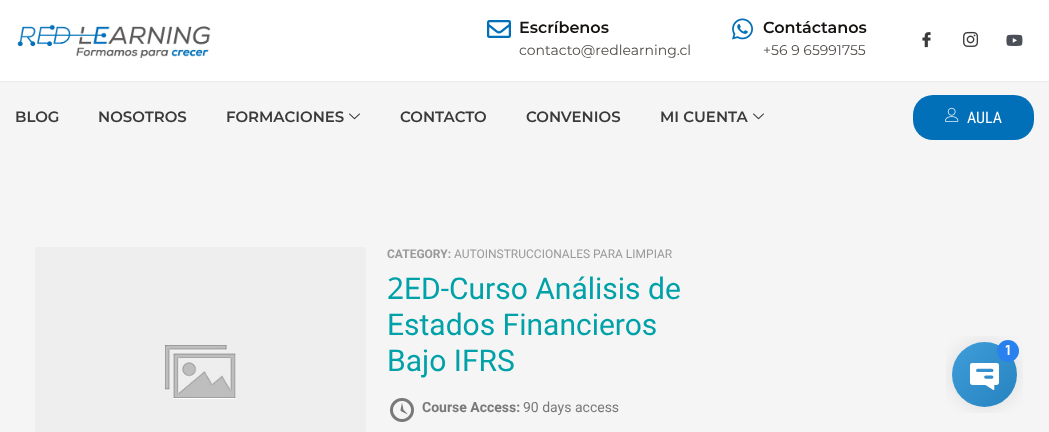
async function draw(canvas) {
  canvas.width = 1049;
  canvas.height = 432;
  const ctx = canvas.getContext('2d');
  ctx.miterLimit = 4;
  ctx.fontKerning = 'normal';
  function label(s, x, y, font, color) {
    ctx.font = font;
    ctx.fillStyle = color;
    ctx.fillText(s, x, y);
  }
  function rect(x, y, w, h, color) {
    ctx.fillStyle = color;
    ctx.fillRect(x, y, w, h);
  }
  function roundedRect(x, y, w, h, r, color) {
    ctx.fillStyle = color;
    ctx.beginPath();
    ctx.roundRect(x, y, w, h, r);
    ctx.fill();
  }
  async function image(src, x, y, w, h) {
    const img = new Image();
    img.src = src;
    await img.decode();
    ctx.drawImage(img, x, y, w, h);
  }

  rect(0, 0, 1049, 432, '#f5f5f5');
  rect(0, 0, 1049, 81, '#fff');
  rect(0, 81, 1049, 1, '#eaebef');
  await image('assets/img1.png', 17, 24, 194, 34);
  await image('assets/img2.png', 487, 20, 24, 18);
  label('Escríbenos', 519, 33, '600 16px Montserrat', '#151312');
  label('contacto@redlearning.cl', 519, 55, '14px Montserrat', '#4f4b49');
  await image('assets/img3.png', 732, 18, 21, 22);
  label('Contáctanos', 763, 33, '600 16px Montserrat', '#151312');
  label('+56 9 65991755', 763, 55, '14px Montserrat', '#4f4b49');
  await image('assets/img4.png', 922, 32, 9, 16);
  await image('assets/img5.png', 963, 31, 16, 16);
  await image('assets/img6.png', 1006, 34, 17, 12);
  label('BLOG', 15, 122, '600 15px Montserrat', '#3a3a3a');
  label('NOSOTROS', 98, 122, '600 15px Montserrat', '#3a3a3a');
  label('FORMACIONES', 226, 122, '600 15px Montserrat', '#3a3a3a');
  await image('assets/img7.png', 349, 113, 11, 7);
  label('CONTACTO', 400, 122, '600 15px Montserrat', '#3a3a3a');
  label('CONVENIOS', 526, 122, '600 15px Montserrat', '#3a3a3a');
  label('MI CUENTA', 660, 122, '600 15px Montserrat', '#3a3a3a');
  await image('assets/img7.png', 753, 113, 11, 7);
  roundedRect(913, 95, 121, 45, 20, '#0170b9');
  await image('assets/img8.png', 945, 107, 14, 15);
  label('AULA', 967, 123, '16px Roboto Condensed', '#fff');
  await image('assets/img9.png', 35, 247, 331, 185);
  label('CATEGORY:', 387, 258, 'bold 12px Roboto', '#999');
  label('AUTOINSTRUCCIONALES PARA LIMPIAR', 454, 258, '12px Roboto', '#999');
  label('2', 387, 299, '30px Noto Sans', '#00a1a8');
  label('ED-Curso Análisis de', 404, 299, '30px Roboto', '#00a1a8');
  label('Estados Financieros', 387, 335, '30px Roboto', '#00a1a8');
  label('Bajo IFRS', 387, 371, '30px Roboto', '#00a1a8');
  await image('assets/img10.png', 390, 398, 24, 24);
  label('Course Access:', 422, 412, 'bold 14px Roboto', '#797979');
  label('90 days access', 523, 412, '14px Roboto', '#797979');
  await image('assets/img11.png', 946, 336, 77, 77);
}

draw(document.querySelector('canvas'));
